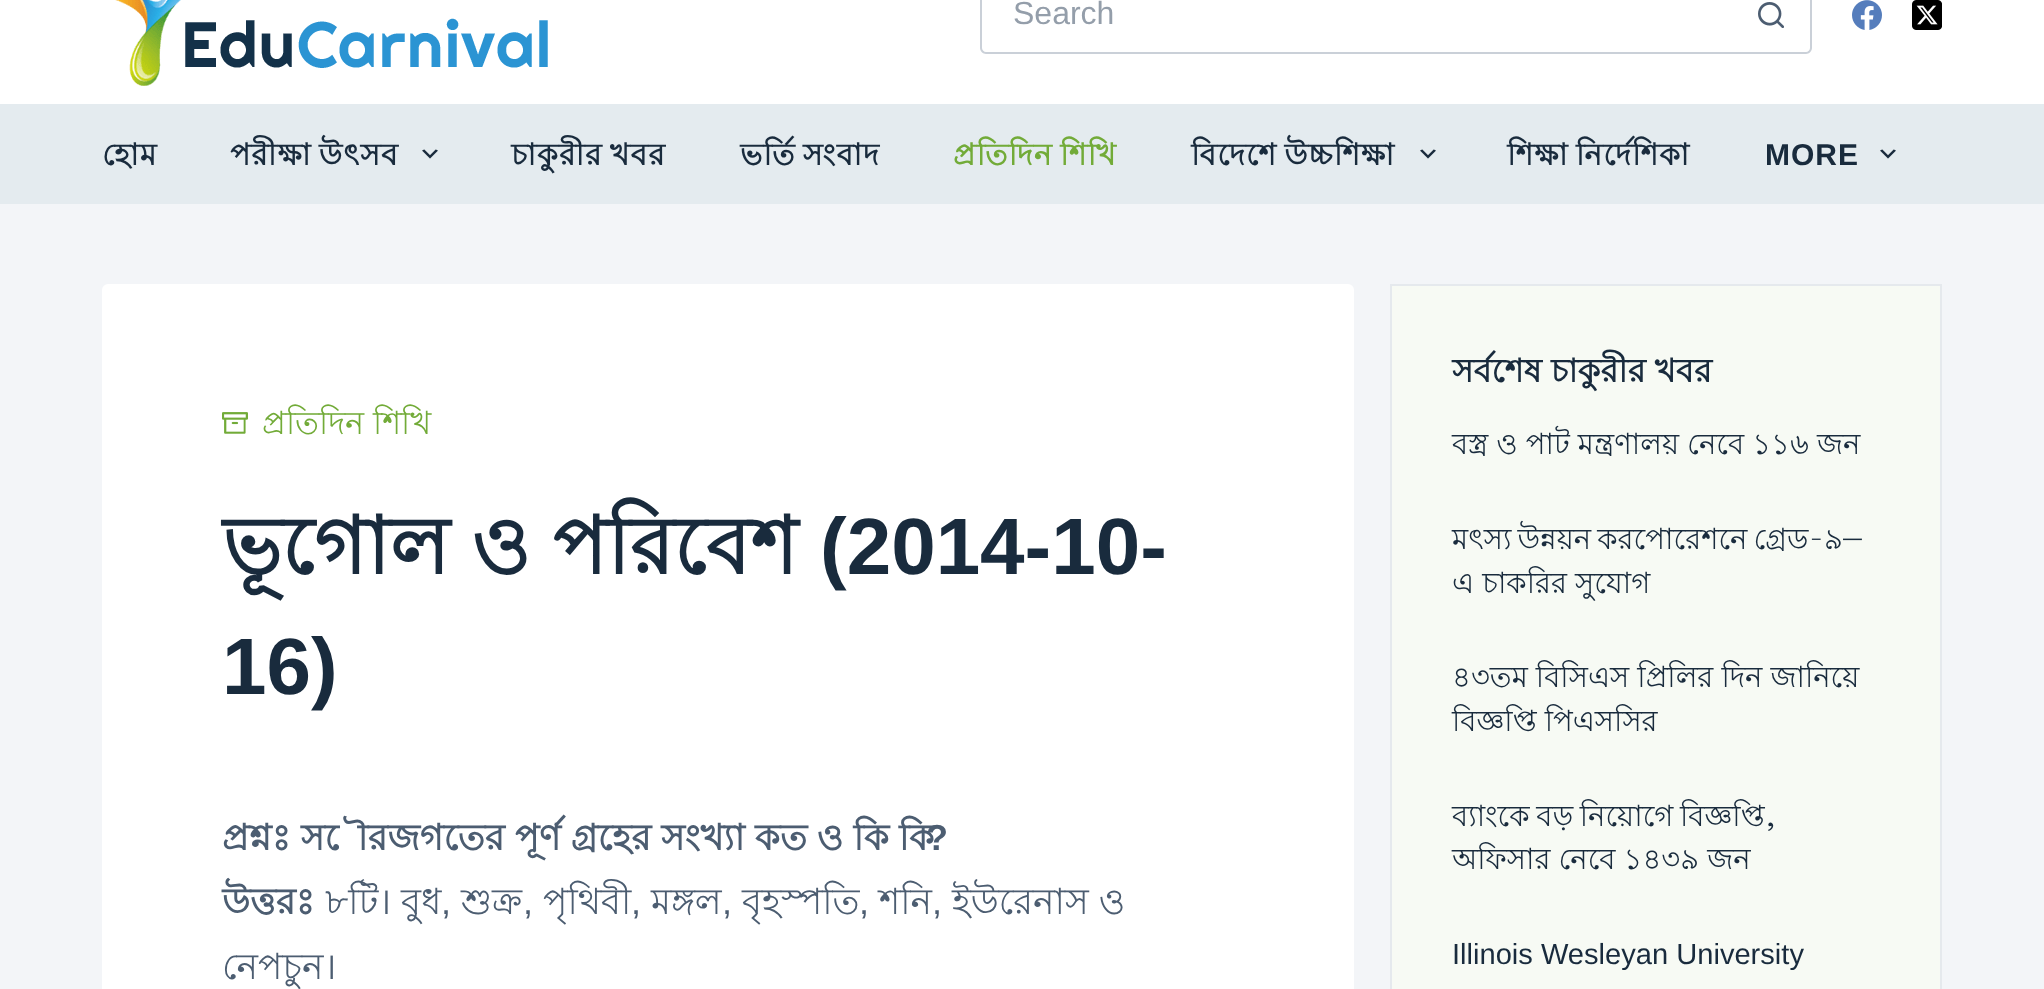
async function draw(canvas) {
  canvas.width = 2044;
  canvas.height = 989;
  const ctx = canvas.getContext('2d');
  ctx.miterLimit = 4;
  ctx.fontKerning = 'normal';
  function label(s, x, y, font, color) {
    ctx.font = font;
    ctx.fillStyle = color;
    ctx.fillText(s, x, y);
  }
  function rect(x, y, w, h, color) {
    ctx.fillStyle = color;
    ctx.fillRect(x, y, w, h);
  }
  function roundedRect(x, y, w, h, r, color) {
    ctx.fillStyle = color;
    ctx.beginPath();
    ctx.roundRect(x, y, w, h, r);
    ctx.fill();
  }
  async function image(src, x, y, w, h) {
    const img = new Image();
    img.src = src;
    await img.decode();
    ctx.drawImage(img, x, y, w, h);
  }
  let path;

  rect(0, 0, 2044, 989, '#f3f5f8');
  rect(0, 0, 2044, 104, '#fff');
  await image('assets/img1.png', 115, 0, 433, 86);
  ctx.fillStyle = '#cad0d8';
  path = new Path2D('M986-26H1732V54H986C983 54 980 51 980 48V-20C980-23 983-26 986-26ZM986-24H1732V52H986C984 52 982 50 982 48V-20C982-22 984-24 986-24Z');
  ctx.fill(path, 'evenodd');
  label('Search', 1013, 24, '32px Liberation Sans', '#949eaa');
  ctx.fillStyle = '#cad0d8';
  path = new Path2D('M1732-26H1806C1809-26 1812-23 1812-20V48C1812 51 1809 54 1806 54H1732ZM1732-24H1806C1808-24 1810-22 1810-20V48C1810 50 1808 52 1806 52H1732Z');
  ctx.fill(path, 'evenodd');
  await image('assets/img2.png', 1758, 2, 26, 26);
  await image('assets/img3.png', 1852, 0, 30, 30);
  await image('assets/img4.png', 1912, 0, 30, 30);
  rect(0, 104, 2044, 100, '#e4ebef');
  ctx.letterSpacing = '1px';
  label('হোম', 102, 165, 'bold 30px Lohit Bengali', '#192b3d');
  ctx.wordSpacing = '-2px';
  label('পরীক্ষা উৎসব', 230, 165, 'bold 30px Lohit Bengali', '#192b3d');
  await image('assets/img5.png', 422, 149, 16, 10);
  label('চাকুরীর খবর', 511, 165, 'bold 30px Lohit Bengali', '#192b3d');
  label('ভর্তি সংবাদ', 740, 165, 'bold 30px Lohit Bengali', '#192b3d');
  label('প্রতিদিন শিখি', 953, 165, 'bold 30px Lohit Bengali', '#72ab38');
  label('বিদেশে উচ্চশিক্ষা', 1191, 165, 'bold 30px Lohit Bengali', '#192b3d');
  await image('assets/img5.png', 1420, 149, 16, 10);
  label('শিক্ষা নির্দেশিকা', 1507, 165, 'bold 30px Lohit Bengali', '#192b3d');
  ctx.wordSpacing = '0px';
  label('MORE', 1765, 165, 'bold 30px Liberation Sans', '#192b3d');
  await image('assets/img5.png', 1880, 149, 16, 10);
  roundedRect(102, 284, 1252, 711, 6, '#fff');
  await image('assets/img6.png', 222, 412, 26, 22);
  ctx.letterSpacing = '0px';
  label('প্রতিদিন শিখি', 262, 434, '32px Lohit Bengali', '#72ab38');
  label('ভূগোল ও পরিবেশ', 222, 574, 'bold 80px Lohit Bengali', '#192b3d');
  label('(2014-10-', 820, 574, 'bold 80px Liberation Sans', '#192b3d');
  label('16)', 222, 694, 'bold 80px Liberation Sans', '#192b3d');
  label('প্রশ্নঃ সৌরজগতের পূর্ণ গ্রহের সংখ্যা কত ও কি কি', 222, 850, 'bold 36px Lohit Bengali', '#4c5d71');
  label('?', 926, 850, 'bold 36px Liberation Sans', '#4c5d71');
  label('উত্তরঃ', 222, 914, 'bold 36px Lohit Bengali', '#4c5d71');
  label('৮টি। বুধ', 325, 914, '36px Lohit Bengali', '#4c5d71');
  label(',', 441, 914, '36px Liberation Sans', '#4c5d71');
  label('শুক্র', 461, 914, '36px Lohit Bengali', '#4c5d71');
  label(',', 523, 914, '36px Liberation Sans', '#4c5d71');
  label('পৃথিবী', 543, 914, '36px Lohit Bengali', '#4c5d71');
  label(',', 631, 914, '36px Liberation Sans', '#4c5d71');
  label('মঙ্গল', 651, 914, '36px Lohit Bengali', '#4c5d71');
  label(',', 722, 914, '36px Liberation Sans', '#4c5d71');
  label('বৃহস্পতি', 742, 914, '36px Lohit Bengali', '#4c5d71');
  label(',', 859, 914, '36px Liberation Sans', '#4c5d71');
  label('শনি', 879, 914, '36px Lohit Bengali', '#4c5d71');
  label(',', 932, 914, '36px Liberation Sans', '#4c5d71');
  label('ইউরেনাস ও', 952, 914, '36px Lohit Bengali', '#4c5d71');
  label('নেপচুন।', 222, 979, '36px Lohit Bengali', '#4c5d71');
  ctx.fillStyle = '#f7faf4';
  ctx.beginPath();
  ctx.rect(1391, 285, 550, 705);
  ctx.fill();
  ctx.strokeStyle = '#e5e9ed';
  ctx.lineWidth = 2;
  ctx.stroke();
  label('সর্বশেষ চাকুরীর খবর', 1452, 382, 'bold 32.5px Lohit Bengali', '#192b3d');
  label('বস্ত্র ও পাট মন্ত্রণালয় নেবে ১১৬ জন', 1452, 454, '29.1px Lohit Bengali', '#192b3d');
  ctx.wordSpacing = '-2px';
  label('মৎস্য উন্নয়ন করপোরেশনে গ্রেড-৯–', 1452, 549, '29.1px Lohit Bengali', '#192b3d');
  ctx.wordSpacing = '0px';
  label('এ চাকরির সুযোগ', 1452, 593, '29.1px Lohit Bengali', '#192b3d');
  label('৪৩তম বিসিএস প্রিলির দিন জানিয়ে', 1452, 687, '29.1px Lohit Bengali', '#192b3d');
  label('বিজ্ঞপ্তি পিএসসির', 1452, 731, '29.1px Lohit Bengali', '#192b3d');
  ctx.wordSpacing = '-1.5px';
  label('ব্যাংকে বড় নিয়োগে বিজ্ঞপ্তি,', 1452, 826, '29.1px Lohit Bengali', '#192b3d');
  ctx.wordSpacing = '0px';
  label('অফিসার নেবে ১৪৩৯ জন', 1452, 869, '29.1px Lohit Bengali', '#192b3d');
  label('Illinois Wesleyan University', 1452, 964, '29.1px Liberation Sans', '#192b3d');
}

draw(document.querySelector('canvas'));
